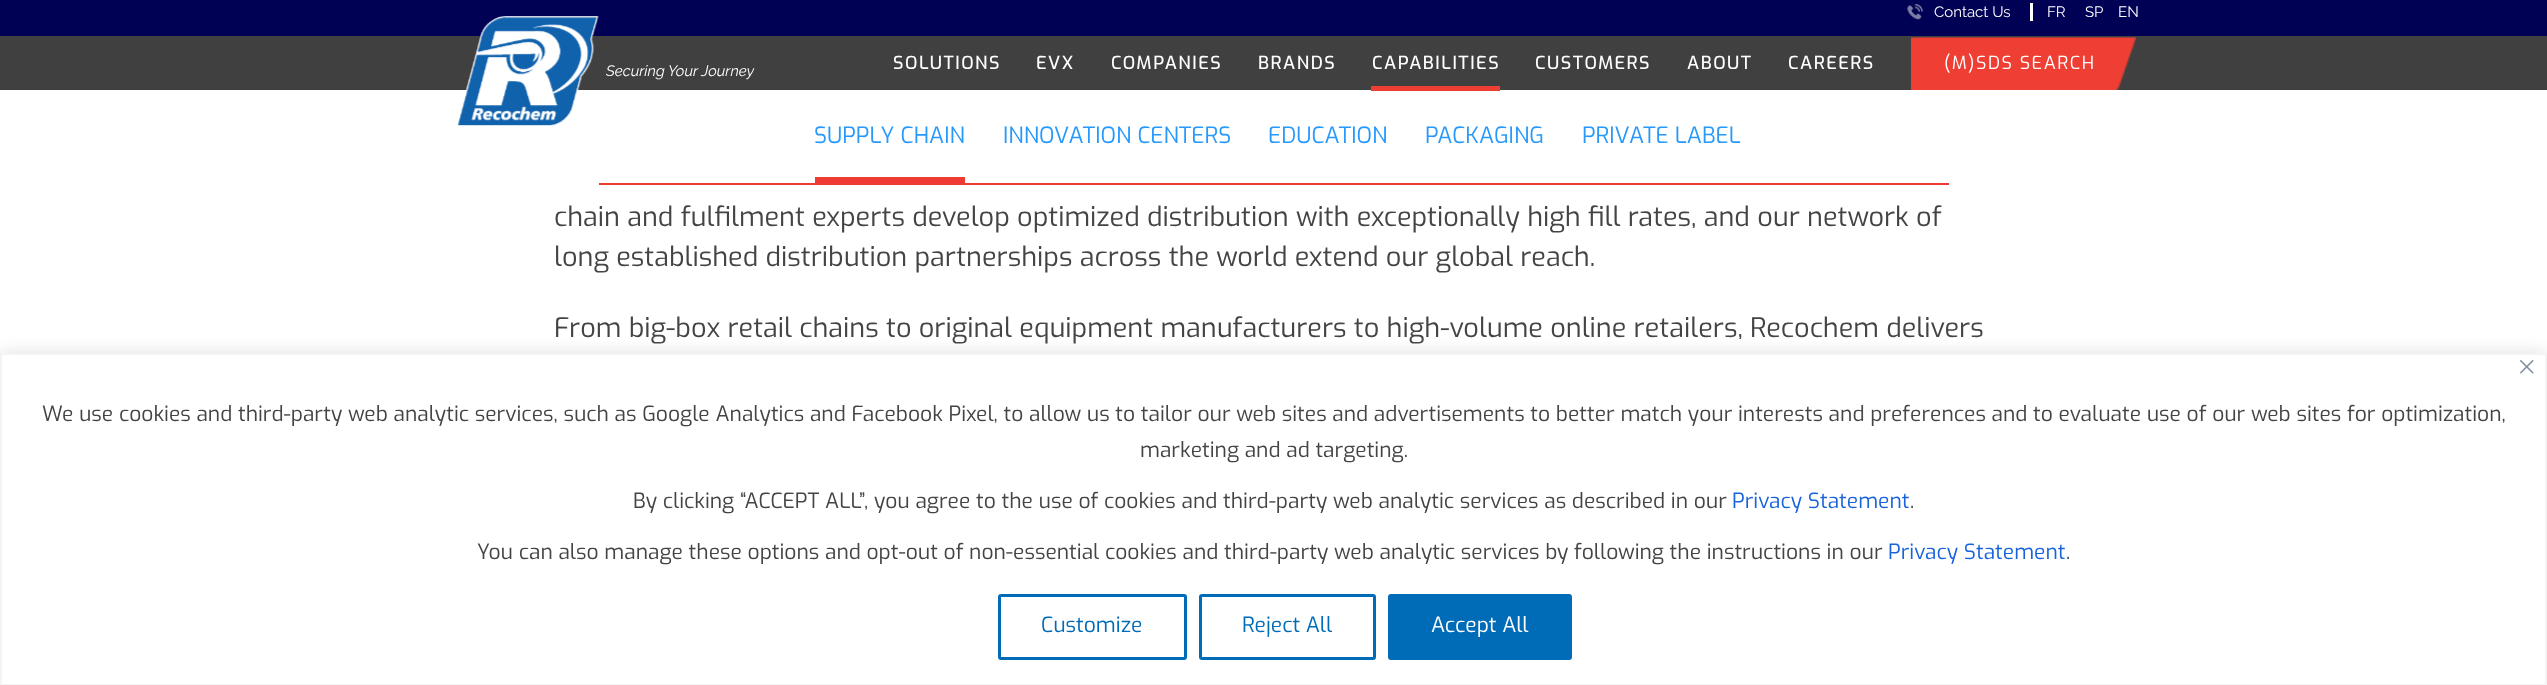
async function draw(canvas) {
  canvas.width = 2547;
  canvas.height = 685;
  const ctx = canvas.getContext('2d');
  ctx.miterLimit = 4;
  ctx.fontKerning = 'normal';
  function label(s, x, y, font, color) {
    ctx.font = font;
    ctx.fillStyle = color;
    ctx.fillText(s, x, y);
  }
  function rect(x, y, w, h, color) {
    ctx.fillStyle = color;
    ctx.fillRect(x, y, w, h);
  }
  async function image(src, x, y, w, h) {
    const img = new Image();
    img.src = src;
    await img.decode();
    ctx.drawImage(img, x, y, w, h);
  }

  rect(0, 0, 2547, 685, '#fff');
  rect(0, 36, 2547, 54, '#000000bf');
  rect(0, 0, 2547, 36, '#000054');
  await image('assets/img1.png', 1907, 4, 16, 16);
  label('Contact Us', 1934, 17, '15px Raleway', '#fff');
  rect(2030, 3, 3, 18, '#fff');
  label('FR', 2047, 17, '15px Raleway', '#fff');
  label('SP', 2085, 17, '15px Raleway', '#fff');
  label('EN', 2118, 17, '15px Raleway', '#fff');
  await image('assets/img2.png', 457, 16, 142, 110);
  label('Securing Your Journey', 606, 76, 'italic 15px Raleway', '#fff');
  ctx.letterSpacing = '1.5px';
  label('SOLUTIONS', 893, 69, '500 18px Exo', '#fff');
  label('EVX', 1036, 69, '500 18px Exo', '#fff');
  label('COMPANIES', 1111, 69, '500 18px Exo', '#fff');
  label('BRANDS', 1258, 69, '500 18px Exo', '#fff');
  rect(1371, 86, 129, 5, '#ef3e33');
  label('CAPABILITIES', 1372, 69, '500 18px Exo', '#fff');
  label('CUSTOMERS', 1535, 69, '500 18px Exo', '#fff');
  label('ABOUT', 1687, 69, '500 18px Exo', '#fff');
  label('CAREERS', 1788, 69, '500 18px Exo', '#fff');
  await image('assets/img3.png', 1911, 37, 225, 53);
  label('(M)SDS SEARCH', 1944, 69, '18px Exo', '#fff');
  rect(599, 183, 1350, 2, '#ee3b33');
  rect(815, 177, 150, 6, '#ee3b33');
  ctx.letterSpacing = '0px';
  label('SUPPLY CHAIN', 814, 143, '22.5px Exo', '#2699fb');
  label('INNOVATION CENTERS', 1003, 143, '22.5px Exo', '#2699fb');
  label('EDUCATION', 1268, 143, '22.5px Exo', '#2699fb');
  label('PACKAGING', 1425, 143, '22.5px Exo', '#2699fb');
  label('PRIVATE LABEL', 1582, 143, '22.5px Exo', '#2699fb');
  label('chain and fulfilment experts develop optimized distribution with exceptionally high fill rates, and our network of', 554, 226, '27px Exo', '#444');
  label('long established distribution partnerships across the world extend our global reach.', 554, 266, '27px Exo', '#444');
  label('From big-box retail chains to original equipment manufacturers to high-volume online retailers, Recochem delivers', 554, 337, '27px Exo', '#444');
  ctx.fillStyle = '#acabab4d';
  ctx.filter = 'blur(7.5px)';
  ctx.beginPath();
  ctx.rect(0, 351, 2547, 333);
  ctx.fill();
  ctx.filter = 'none';
  ctx.fillStyle = '#fff';
  ctx.beginPath();
  ctx.rect(1, 354, 2545, 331);
  ctx.fill();
  ctx.strokeStyle = '#f4f4f4';
  ctx.lineWidth = 2;
  ctx.stroke();
  await image('assets/img4.png', 2520, 360, 14, 14);
  label('We use cookies and third-party web analytic services, such as Google Analytics and Facebook Pixel, to allow us to tailor our web sites and advertisements to better match your interests and preferences and to evaluate use of our web sites for optimization,', 42, 421, '21px Exo', '#444');
  label('marketing and ad targeting.', 1140, 457, '21px Exo', '#444');
  label('By clicking “ACCEPT ALL”, you agree to the use of cookies and third-party web analytic services as described in our', 633, 508, '21px Exo', '#444');
  label('Privacy Statement', 1732, 508, '21px Exo', '#1863dc');
  label('.', 1910, 508, '21px Exo', '#444');
  label('You can also manage these options and opt-out of non-essential cookies and third-party web analytic services by following the instructions in our', 477, 559, '21px Exo', '#444');
  label('Privacy Statement', 1888, 559, '21px Exo', '#1863dc');
  label('.', 2066, 559, '21px Exo', '#444');
  ctx.beginPath();
  ctx.roundRect(999.5, 595.5, 186, 63, 1.5);
  ctx.strokeStyle = '#006bb7';
  ctx.lineWidth = 3;
  ctx.stroke();
  label('Customize', 1041, 632, '21px Exo', '#006bb7');
  ctx.beginPath();
  ctx.roundRect(1200.5, 595.5, 174, 63, 1.5);
  ctx.stroke();
  label('Reject All', 1242, 632, '21px Exo', '#006bb7');
  ctx.beginPath();
  ctx.roundRect(1389.5, 595.5, 181, 63, 1.5);
  ctx.fill();
  ctx.stroke();
  label('Accept All', 1431, 632, '21px Exo', '#fff');
}

draw(document.querySelector('canvas'));
